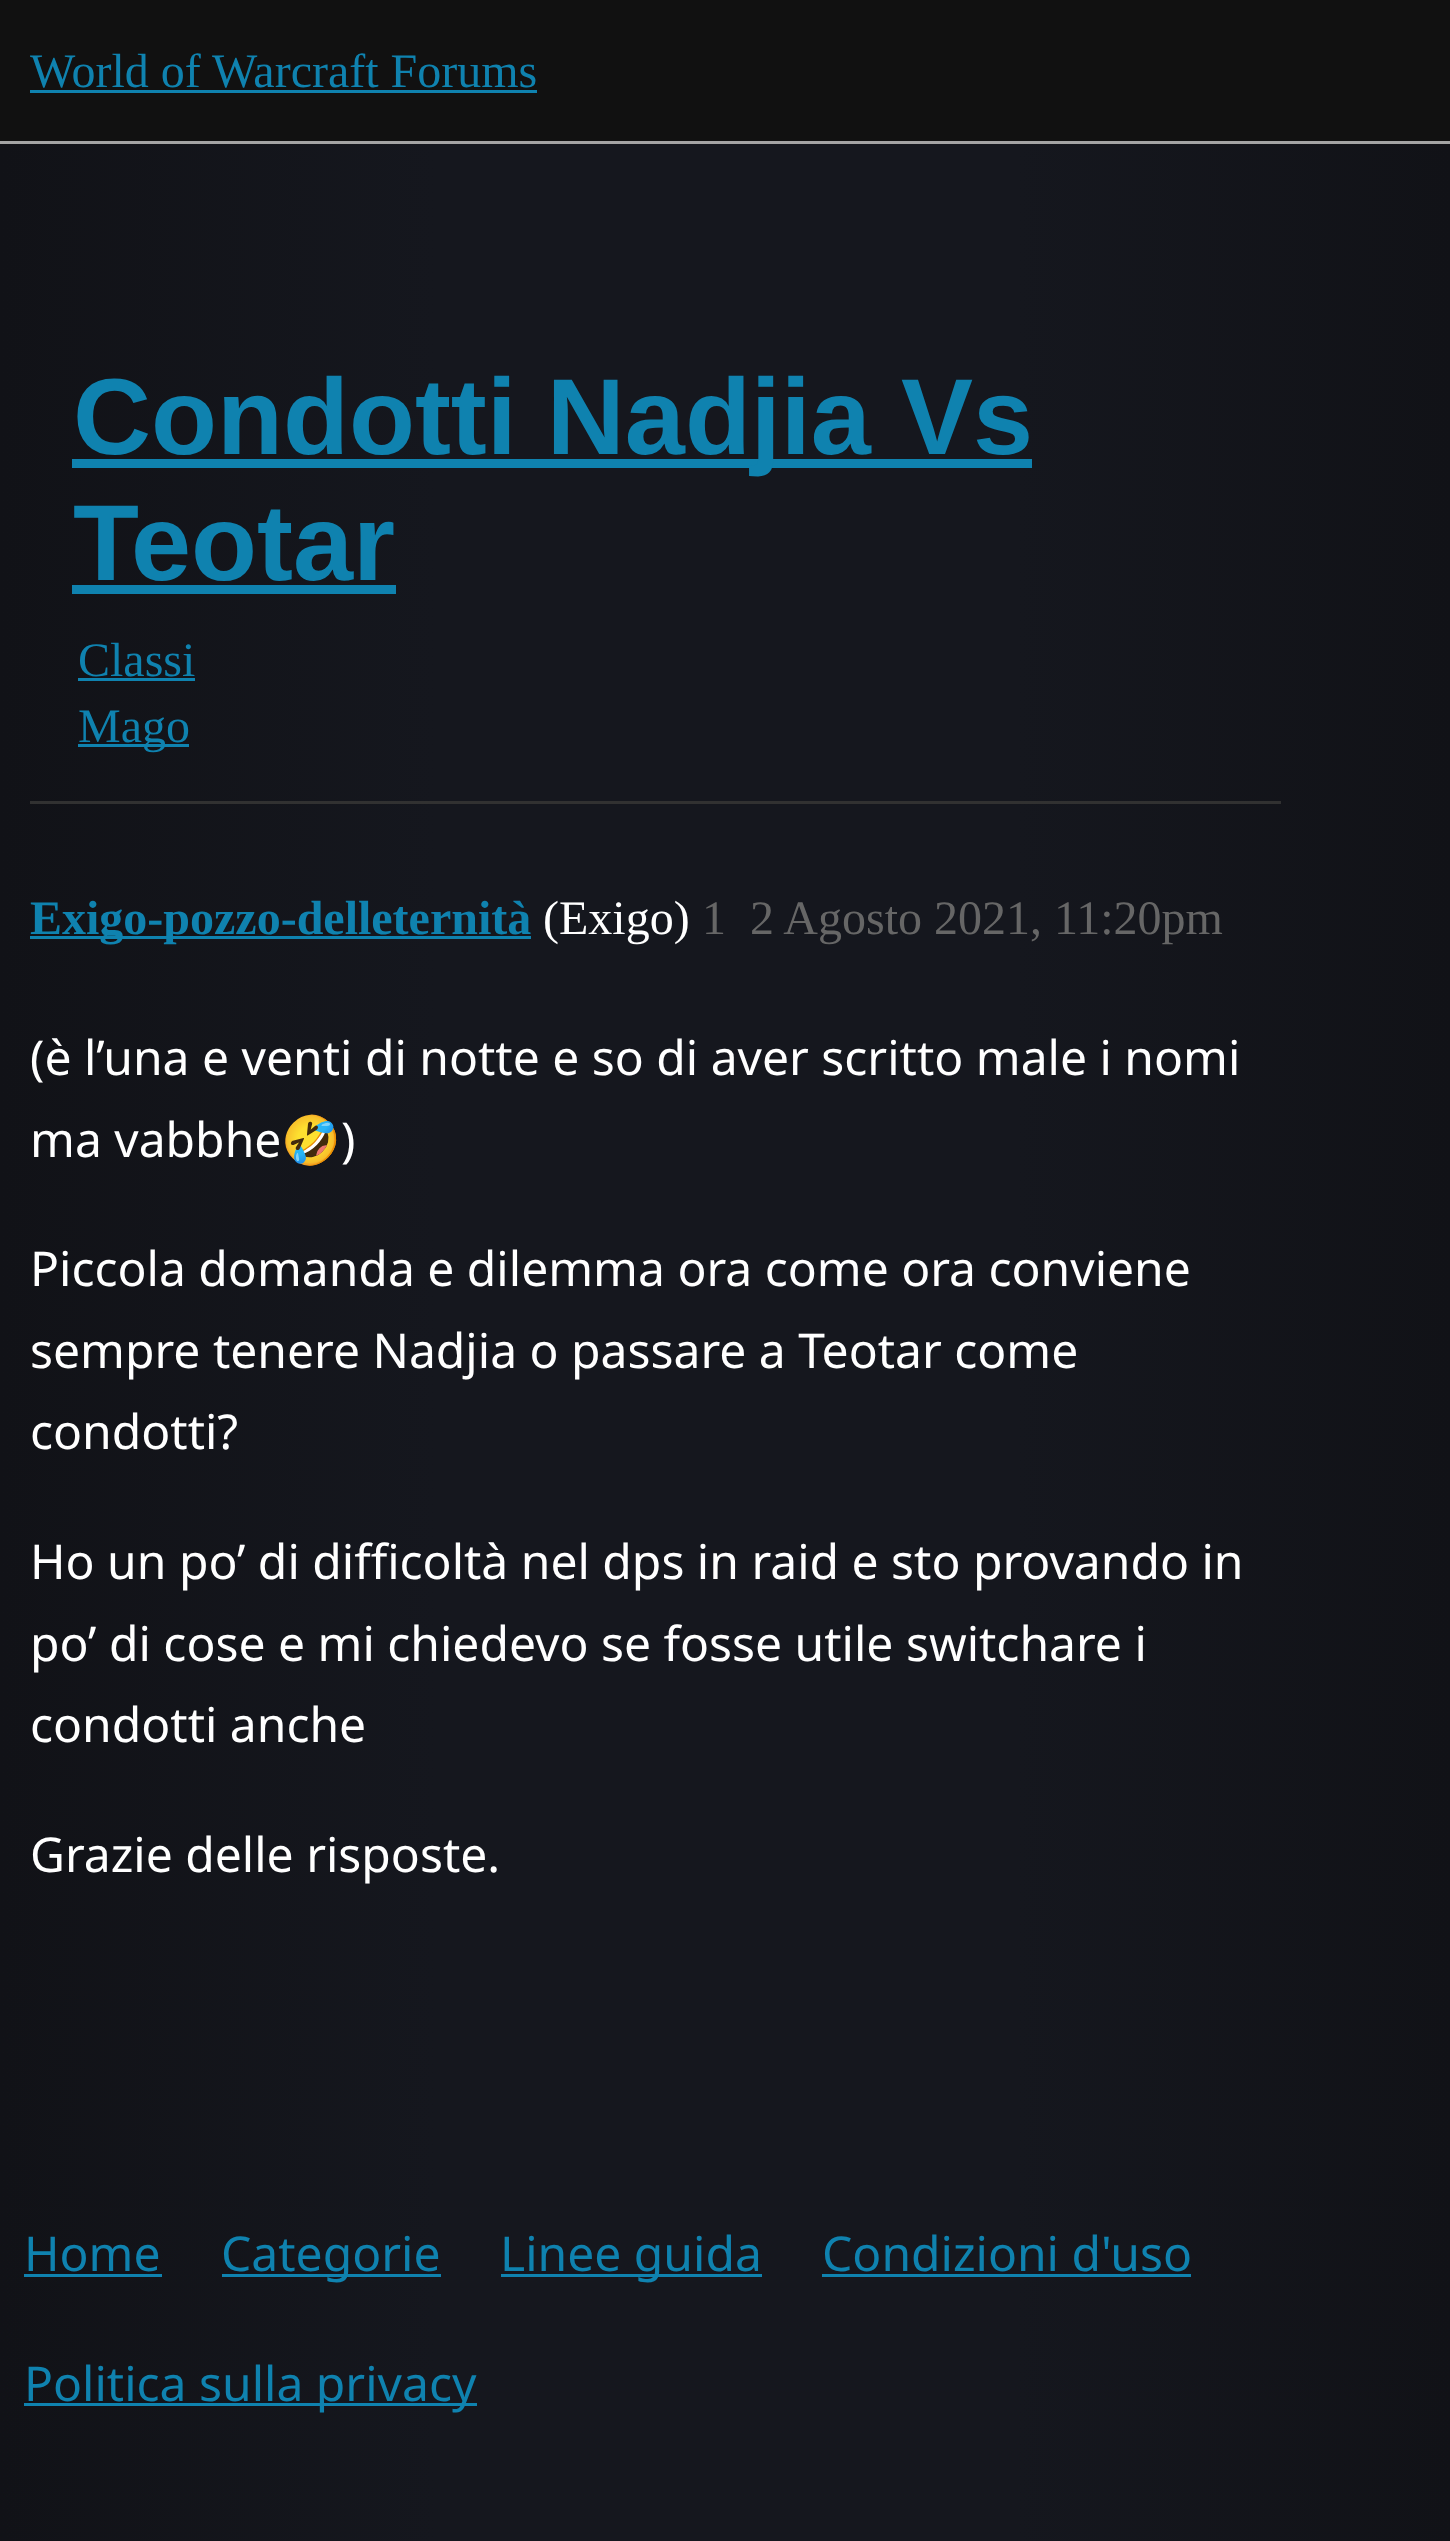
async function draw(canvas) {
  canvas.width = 1450;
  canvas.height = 2541;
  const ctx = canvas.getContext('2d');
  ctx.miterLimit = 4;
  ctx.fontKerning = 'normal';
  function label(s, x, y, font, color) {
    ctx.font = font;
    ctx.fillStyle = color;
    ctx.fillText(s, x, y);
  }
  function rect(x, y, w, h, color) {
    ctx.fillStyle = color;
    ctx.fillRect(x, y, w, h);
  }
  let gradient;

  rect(0, 0, 1450, 2541, '#fff');
  gradient = ctx.createLinearGradient(0, 1302, 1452, 1302);
  gradient.addColorStop(0, '#111217');
  gradient.addColorStop(0.3, '#15171e');
  gradient.addColorStop(0.7, '#15171e');
  gradient.addColorStop(1, '#111217');
  ctx.fillStyle = gradient;
  ctx.fillRect(0, 144, 1450, 2397);
  rect(0, 0, 1450, 141, '#111');
  rect(0, 141, 1450, 3, '#a4a4a4');
  label('World of Warcraft Forums', 30, 87, '48px Liberation Serif', '#0f82af');
  rect(30, 90, 507, 3, '#0f82af');
  rect(72, 459, 960, 9, '#0f82af');
  label('Condotti Nadjia Vs', 73, 454, 'bold 108px Liberation Sans', '#0f82af');
  label('Teotar', 73, 580, 'bold 108px Liberation Sans', '#0f82af');
  rect(72, 585, 324, 9, '#0f82af');
  label('Classi', 78, 676, '48px Liberation Serif', '#0f82af');
  rect(78, 678, 117, 3, '#0f82af');
  rect(78, 744, 111, 3, '#0f82af');
  label('Mago', 78, 742, '48px Liberation Serif', '#0f82af');
  rect(30, 801, 1251, 3, '#313131');
  rect(30, 936, 501, 3, '#0f82af');
  label('Exigo-pozzo-delleternità', 30, 934, 'bold 48px Liberation Serif', '#0f82af');
  label('(Exigo)', 543, 934, '48px Liberation Serif', '#fff');
  label('1', 702, 934, '48px Liberation Serif', '#666');
  label('2 Agosto 2021, 11:20pm', 750, 934, '48px Liberation Serif', '#666');
  label('(è l’una e venti di notte e so di aver scritto male i nomi', 30, 1075, '48px Noto Sans', '#fff');
  label('ma vabbhe', 30, 1157, '48px Noto Sans', '#fff');
  label('🤣', 281, 1157, '48px Noto Color Emoji', '#fff');
  label(')', 341, 1157, '48px Noto Sans', '#fff');
  label('Piccola domanda e dilemma ora come ora conviene', 30, 1286, '48px Noto Sans', '#fff');
  label('sempre tenere Nadjia o passare a Teotar come', 30, 1368, '48px Noto Sans', '#fff');
  label('condotti?', 30, 1449, '48px Noto Sans', '#fff');
  label('Ho un po’ di difficoltà nel dps in raid e sto provando in', 30, 1579, '48px Noto Sans', '#fff');
  label('po’ di cose e mi chiedevo se fosse utile switchare i', 30, 1661, '48px Noto Sans', '#fff');
  label('condotti anche', 30, 1742, '48px Noto Sans', '#fff');
  label('Grazie delle risposte.', 30, 1872, '48px Noto Sans', '#fff');
  label('Home', 24, 2271, '48px Noto Sans', '#0f82af');
  rect(24, 2274, 138, 3, '#0f82af');
  rect(222, 2274, 219, 3, '#0f82af');
  label('Categorie', 221, 2271, '48px Noto Sans', '#0f82af');
  rect(501, 2274, 261, 3, '#0f82af');
  label('Linee guida', 500, 2271, '48px Noto Sans', '#0f82af');
  label('Condizioni d\'uso', 822, 2271, '48px Noto Sans', '#0f82af');
  rect(822, 2274, 369, 3, '#0f82af');
  rect(24, 2403, 453, 3, '#0f82af');
  label('Politica sulla privacy', 24, 2401, '48px Noto Sans', '#0f82af');
}

draw(document.querySelector('canvas'));
